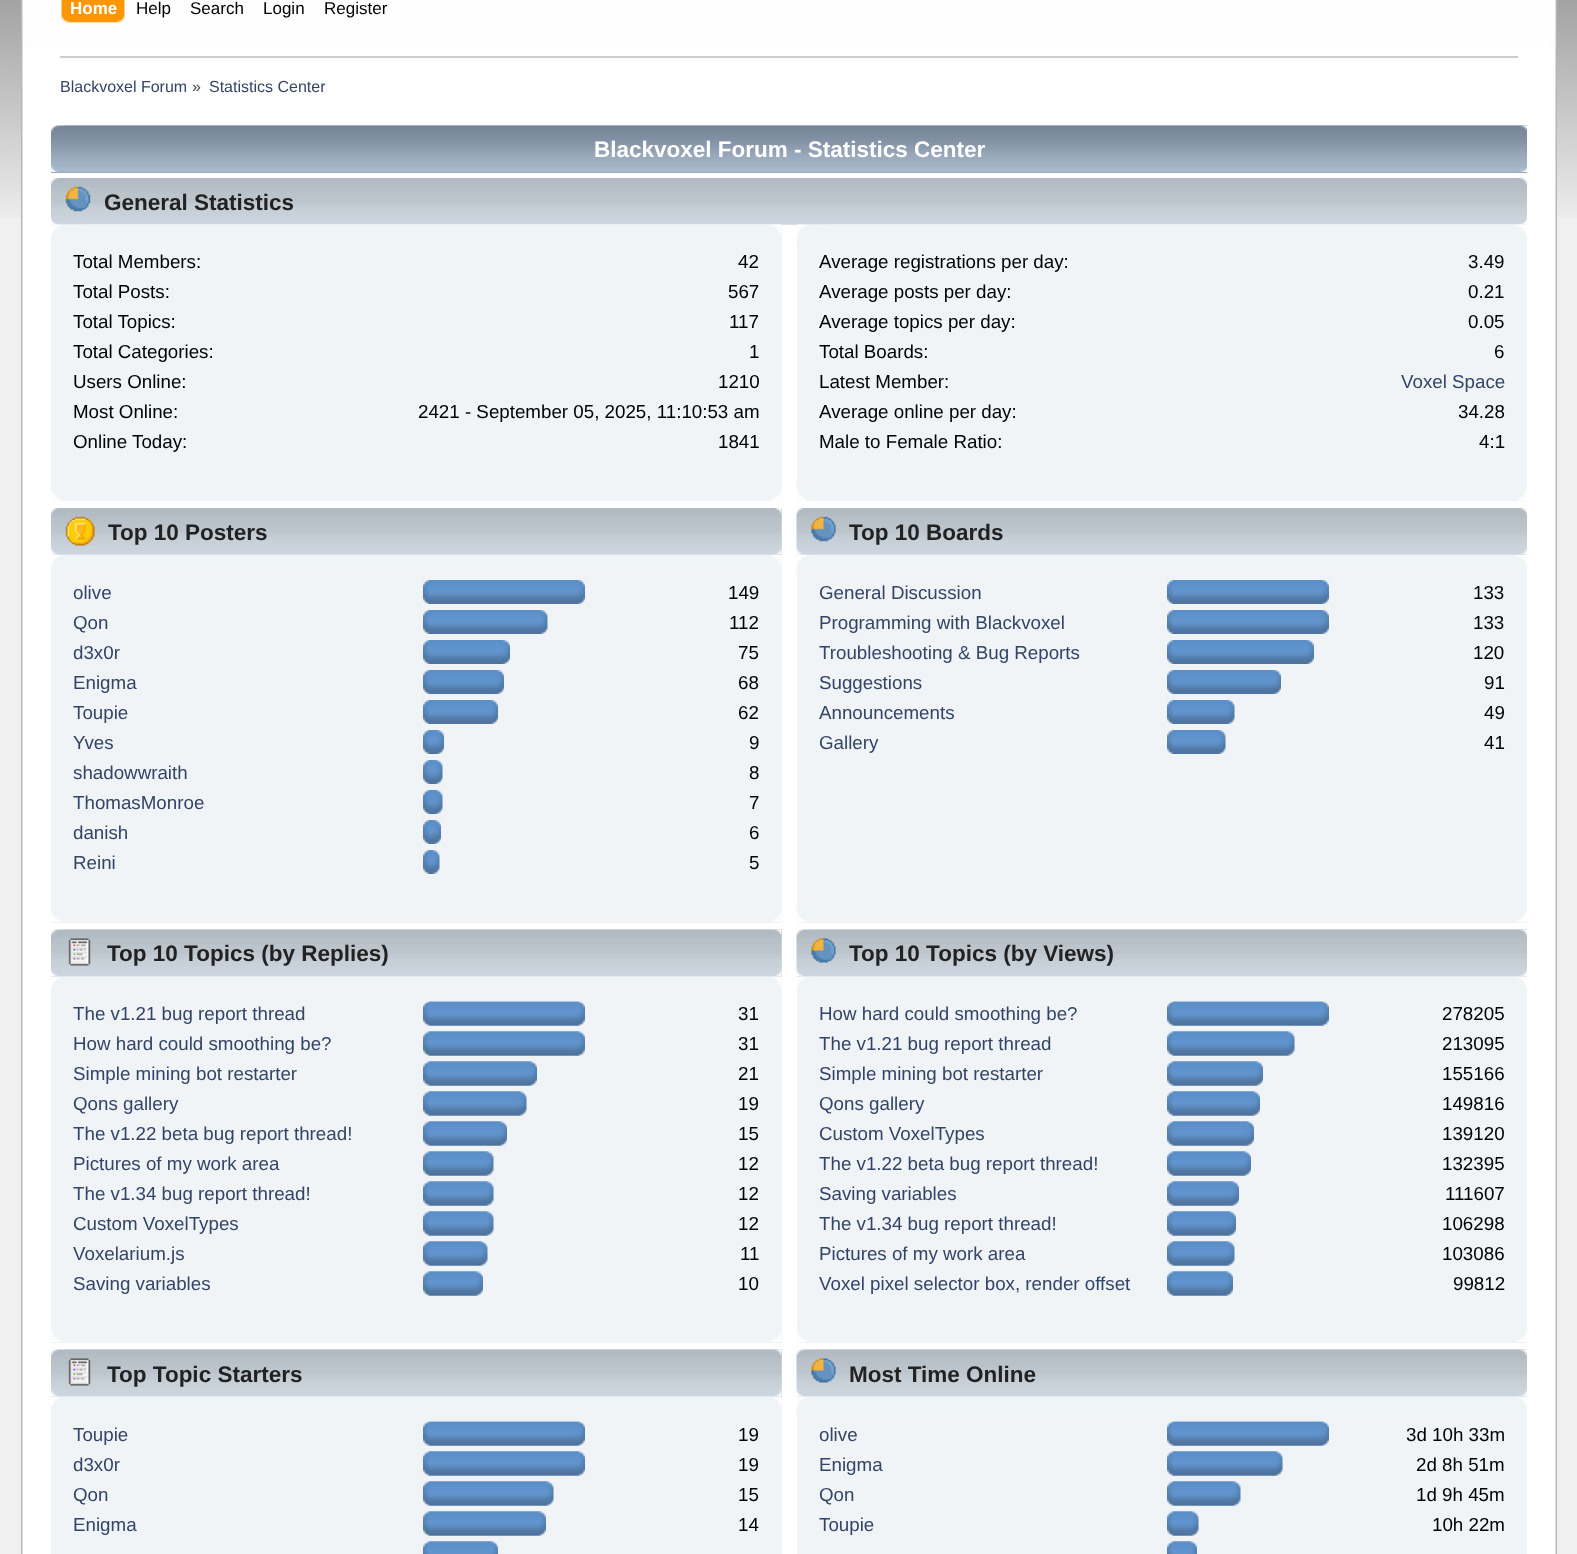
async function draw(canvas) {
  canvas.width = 1577;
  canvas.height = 1554;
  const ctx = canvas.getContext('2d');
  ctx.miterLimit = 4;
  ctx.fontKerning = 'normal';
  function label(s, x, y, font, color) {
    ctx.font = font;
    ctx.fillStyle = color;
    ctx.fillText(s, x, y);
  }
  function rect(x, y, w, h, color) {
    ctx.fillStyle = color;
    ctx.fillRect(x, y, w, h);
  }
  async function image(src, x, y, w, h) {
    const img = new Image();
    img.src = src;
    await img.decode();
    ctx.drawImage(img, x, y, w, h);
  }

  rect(0, 0, 1577, 1554, '#f0f0f0');
  await image('assets/img1.png', 0, 0, 1577, 218);
  rect(23, 0, 1532, 47, '#fefefe');
  await image('assets/img2.png', 21, 0, 9, 46);
  await image('assets/img3.png', 1548, 0, 9, 46);
  await image('assets/img4.png', 69, 0, 56, 23);
  await image('assets/img5.png', 61, 0, 56, 23);
  label('Home', 70, 14, 'bold 17px Liberation Sans', '#fff');
  label('Help', 136, 14, '17px Liberation Sans', '#000');
  label('Search', 190, 14, '17px Liberation Sans', '#000');
  label('Login', 263, 14, '17px Liberation Sans', '#000');
  label('Register', 324, 14, '17px Liberation Sans', '#000');
  rect(23, 47, 1532, 1507, '#fff');
  await image('assets/img6.png', 21, 46, 2, 1508);
  await image('assets/img7.png', 1555, 46, 2, 1508);
  rect(60, 56, 1458, 2, '#ccc');
  label('Blackvoxel Forum', 60, 92, '16px Liberation Sans', '#346');
  label('»', 192, 92, '16px Liberation Sans', '#444');
  label('Statistics Center', 209, 92, '16px Liberation Sans', '#346');
  rect(51, 172, 1476, 1, '#99abbf');
  await image('assets/img8.png', 51, 125, 1476, 47);
  await image('assets/img9.png', 64, 125, 1463, 47);
  label('Blackvoxel Forum - Statistics Center', 594, 157, 'bold 22.5px Liberation Sans', '#fff');
  rect(51, 224, 1476, 1, '#e3e9ef');
  await image('assets/img10.png', 51, 178, 1476, 47);
  await image('assets/img11.png', 1520, 178, 7, 47);
  await image('assets/img12.png', 65, 186, 26, 26);
  label('General Statistics', 104, 210, 'bold 22.5px Liberation Sans', '#222');
  rect(51, 225, 731, 276, '#f0f4f7');
  await image('assets/img13.png', 51, 224, 731, 12);
  await image('assets/img14.png', 81, 224, 701, 11);
  label('Total Members:', 73, 268, '18.75px Liberation Sans', '#000');
  label('42', 738, 268, '18.75px Liberation Sans', '#000');
  label('Total Posts:', 73, 298, '18.75px Liberation Sans', '#000');
  label('567', 728, 298, '18.75px Liberation Sans', '#000');
  label('Total Topics:', 73, 328, '18.75px Liberation Sans', '#000');
  label('117', 729, 328, '18.75px Liberation Sans', '#000');
  label('Total Categories:', 73, 358, '18.75px Liberation Sans', '#000');
  label('1', 749, 358, '18.75px Liberation Sans', '#000');
  label('Users Online:', 73, 388, '18.75px Liberation Sans', '#000');
  label('1210', 718, 388, '18.75px Liberation Sans', '#000');
  label('Most Online:', 73, 418, '18.75px Liberation Sans', '#000');
  label('2421 - September 05, 2025, 11:10:53 am', 418, 418, '18.75px Liberation Sans', '#000');
  label('Online Today:', 73, 448, '18.75px Liberation Sans', '#000');
  label('1841', 718, 448, '18.75px Liberation Sans', '#000');
  await image('assets/img15.png', 51, 489, 11, 12);
  await image('assets/img16.png', 771, 490, 11, 11);
  rect(797, 241, 730, 260, '#f0f4f7');
  await image('assets/img17.png', 796, 224, 731, 17);
  await image('assets/img18.png', 827, 224, 700, 12);
  label('Average registrations per day:', 819, 268, '18.75px Liberation Sans', '#000');
  label('3.49', 1468, 268, '18.75px Liberation Sans', '#000');
  label('Average posts per day:', 819, 298, '18.75px Liberation Sans', '#000');
  label('0.21', 1468, 298, '18.75px Liberation Sans', '#000');
  label('Average topics per day:', 819, 328, '18.75px Liberation Sans', '#000');
  label('0.05', 1468, 328, '18.75px Liberation Sans', '#000');
  label('Total Boards:', 819, 358, '18.75px Liberation Sans', '#000');
  label('6', 1494, 358, '18.75px Liberation Sans', '#000');
  label('Latest Member:', 819, 388, '18.75px Liberation Sans', '#000');
  label('Voxel Space', 1401, 388, '18.75px Liberation Sans', '#346');
  label('Average online per day:', 819, 418, '18.75px Liberation Sans', '#000');
  label('34.28', 1458, 418, '18.75px Liberation Sans', '#000');
  label('Male to Female Ratio:', 819, 448, '18.75px Liberation Sans', '#000');
  label('4:1', 1479, 448, '18.75px Liberation Sans', '#000');
  await image('assets/img19.png', 796, 484, 11, 17);
  await image('assets/img20.png', 1516, 489, 11, 12);
  rect(51, 509, 731, 46, '#e3e9ef');
  await image('assets/img21.png', 51, 508, 731, 47);
  await image('assets/img22.png', 774, 508, 8, 47);
  await image('assets/img23.png', 65, 516, 30, 30);
  label('Top 10 Posters', 108, 540, 'bold 22.5px Liberation Sans', '#222');
  rect(51, 555, 731, 368, '#f0f4f7');
  await image('assets/img24.png', 51, 555, 731, 11);
  await image('assets/img25.png', 771, 555, 11, 10);
  label('olive', 73, 599, '18.75px Liberation Sans', '#346');
  await image('assets/img26.png', 423, 580, 6, 24);
  await image('assets/img27.png', 429, 580, 156, 24);
  label('149', 728, 599, '18.75px Liberation Sans', '#000');
  label('Qon', 73, 629, '18.75px Liberation Sans', '#346');
  await image('assets/img26.png', 423, 610, 6, 24);
  await image('assets/img28.png', 429, 610, 119, 24);
  label('112', 729, 629, '18.75px Liberation Sans', '#000');
  label('d3x0r', 73, 659, '18.75px Liberation Sans', '#346');
  await image('assets/img26.png', 423, 640, 6, 24);
  await image('assets/img29.png', 429, 640, 81, 24);
  label('75', 738, 659, '18.75px Liberation Sans', '#000');
  label('Enigma', 73, 689, '18.75px Liberation Sans', '#346');
  await image('assets/img26.png', 423, 670, 6, 24);
  await image('assets/img30.png', 429, 670, 75, 24);
  label('68', 738, 689, '18.75px Liberation Sans', '#000');
  label('Toupie', 73, 719, '18.75px Liberation Sans', '#346');
  await image('assets/img26.png', 423, 700, 6, 24);
  await image('assets/img31.png', 429, 700, 69, 24);
  label('62', 738, 719, '18.75px Liberation Sans', '#000');
  label('Yves', 73, 749, '18.75px Liberation Sans', '#346');
  await image('assets/img26.png', 423, 730, 6, 24);
  await image('assets/img32.png', 429, 730, 15, 24);
  label('9', 749, 749, '18.75px Liberation Sans', '#000');
  label('shadowwraith', 73, 779, '18.75px Liberation Sans', '#346');
  await image('assets/img26.png', 423, 760, 6, 24);
  await image('assets/img33.png', 429, 760, 14, 24);
  label('8', 749, 779, '18.75px Liberation Sans', '#000');
  label('ThomasMonroe', 73, 809, '18.75px Liberation Sans', '#346');
  await image('assets/img26.png', 423, 790, 6, 24);
  await image('assets/img33.png', 429, 790, 14, 24);
  label('7', 749, 809, '18.75px Liberation Sans', '#000');
  label('danish', 73, 839, '18.75px Liberation Sans', '#346');
  await image('assets/img26.png', 423, 820, 6, 24);
  await image('assets/img34.png', 429, 820, 12, 24);
  label('6', 749, 839, '18.75px Liberation Sans', '#000');
  label('Reini', 73, 869, '18.75px Liberation Sans', '#346');
  await image('assets/img26.png', 423, 850, 6, 24);
  await image('assets/img35.png', 429, 850, 11, 24);
  label('5', 749, 869, '18.75px Liberation Sans', '#000');
  await image('assets/img36.png', 51, 911, 11, 11);
  await image('assets/img37.png', 770, 911, 12, 11);
  await image('assets/img41.png', 796, 554, 731, 17);
  rect(797, 554, 730, 1, '#e3e9ef');
  await image('assets/img38.png', 796, 508, 731, 47);
  await image('assets/img39.png', 1520, 508, 7, 47);
  await image('assets/img40.png', 811, 516, 25, 26);
  label('Top 10 Boards', 849, 540, 'bold 22.5px Liberation Sans', '#222');
  rect(797, 571, 730, 352, '#f0f4f7');
  await image('assets/img42.png', 1516, 555, 11, 11);
  label('General Discussion', 819, 599, '18.75px Liberation Sans', '#346');
  await image('assets/img26.png', 1167, 580, 6, 24);
  await image('assets/img27.png', 1173, 580, 156, 24);
  label('133', 1473, 599, '18.75px Liberation Sans', '#000');
  label('Programming with Blackvoxel', 819, 629, '18.75px Liberation Sans', '#346');
  await image('assets/img26.png', 1167, 610, 6, 24);
  await image('assets/img27.png', 1173, 610, 156, 24);
  label('133', 1473, 629, '18.75px Liberation Sans', '#000');
  label('Troubleshooting & Bug Reports', 819, 659, '18.75px Liberation Sans', '#346');
  await image('assets/img26.png', 1167, 640, 6, 24);
  await image('assets/img43.png', 1173, 640, 141, 24);
  label('120', 1473, 659, '18.75px Liberation Sans', '#000');
  label('Suggestions', 819, 689, '18.75px Liberation Sans', '#346');
  await image('assets/img26.png', 1167, 670, 6, 24);
  await image('assets/img44.png', 1173, 670, 108, 24);
  label('91', 1484, 689, '18.75px Liberation Sans', '#000');
  label('Announcements', 819, 719, '18.75px Liberation Sans', '#346');
  await image('assets/img26.png', 1167, 700, 6, 24);
  await image('assets/img45.png', 1173, 700, 62, 24);
  label('49', 1484, 719, '18.75px Liberation Sans', '#000');
  label('Gallery', 819, 749, '18.75px Liberation Sans', '#346');
  await image('assets/img26.png', 1167, 730, 6, 24);
  await image('assets/img46.png', 1173, 730, 53, 24);
  label('41', 1484, 749, '18.75px Liberation Sans', '#000');
  await image('assets/img47.png', 796, 905, 12, 17);
  await image('assets/img48.png', 1516, 911, 11, 11);
  rect(51, 930, 731, 47, '#e3e9ef');
  await image('assets/img49.png', 51, 929, 731, 47);
  await image('assets/img50.png', 64, 929, 718, 47);
  await image('assets/img51.png', 68, 938, 23, 28);
  label('Top 10 Topics (by Replies)', 107, 961, 'bold 22.5px Liberation Sans', '#222');
  rect(51, 977, 731, 366, '#f0f4f7');
  await image('assets/img52.png', 51, 977, 731, 10);
  await image('assets/img53.png', 770, 977, 12, 10);
  label('The v1.21 bug report thread', 73, 1020, '18.75px Liberation Sans', '#346');
  await image('assets/img54.png', 423, 1001, 156, 25);
  await image('assets/img55.png', 429, 1001, 156, 25);
  label('31', 738, 1020, '18.75px Liberation Sans', '#000');
  label('How hard could smoothing be?', 73, 1050, '18.75px Liberation Sans', '#346');
  await image('assets/img56.png', 423, 1031, 156, 25);
  await image('assets/img57.png', 429, 1031, 156, 25);
  label('31', 738, 1050, '18.75px Liberation Sans', '#000');
  label('Simple mining bot restarter', 73, 1080, '18.75px Liberation Sans', '#346');
  await image('assets/img58.png', 423, 1061, 108, 25);
  await image('assets/img59.png', 429, 1061, 108, 25);
  label('21', 738, 1080, '18.75px Liberation Sans', '#000');
  label('Qons gallery', 73, 1110, '18.75px Liberation Sans', '#346');
  await image('assets/img60.png', 423, 1091, 98, 25);
  await image('assets/img61.png', 429, 1091, 98, 25);
  label('19', 738, 1110, '18.75px Liberation Sans', '#000');
  label('The v1.22 beta bug report thread!', 73, 1140, '18.75px Liberation Sans', '#346');
  await image('assets/img62.png', 423, 1121, 78, 25);
  await image('assets/img63.png', 429, 1121, 78, 25);
  label('15', 738, 1140, '18.75px Liberation Sans', '#000');
  label('Pictures of my work area', 73, 1170, '18.75px Liberation Sans', '#346');
  await image('assets/img64.png', 423, 1151, 65, 25);
  await image('assets/img65.png', 429, 1151, 65, 25);
  label('12', 738, 1170, '18.75px Liberation Sans', '#000');
  label('The v1.34 bug report thread!', 73, 1200, '18.75px Liberation Sans', '#346');
  await image('assets/img64.png', 423, 1181, 65, 25);
  await image('assets/img65.png', 429, 1181, 65, 25);
  label('12', 738, 1200, '18.75px Liberation Sans', '#000');
  label('Custom VoxelTypes', 73, 1230, '18.75px Liberation Sans', '#346');
  await image('assets/img64.png', 423, 1211, 65, 25);
  await image('assets/img65.png', 429, 1211, 65, 25);
  label('12', 738, 1230, '18.75px Liberation Sans', '#000');
  label('Voxelarium.js', 73, 1260, '18.75px Liberation Sans', '#346');
  await image('assets/img66.png', 423, 1241, 59, 25);
  await image('assets/img67.png', 429, 1241, 59, 25);
  label('11', 740, 1260, '18.75px Liberation Sans', '#000');
  label('Saving variables', 73, 1290, '18.75px Liberation Sans', '#346');
  await image('assets/img68.png', 423, 1271, 54, 25);
  await image('assets/img69.png', 429, 1271, 54, 25);
  label('10', 738, 1290, '18.75px Liberation Sans', '#000');
  await image('assets/img36.png', 51, 1331, 11, 11);
  await image('assets/img37.png', 770, 1331, 12, 11);
  rect(797, 992, 730, 351, '#f0f4f7');
  await image('assets/img73.png', 796, 976, 731, 17);
  rect(797, 976, 730, 1, '#e3e9ef');
  await image('assets/img70.png', 796, 929, 731, 47);
  await image('assets/img71.png', 810, 929, 717, 47);
  await image('assets/img72.png', 811, 938, 25, 25);
  label('Top 10 Topics (by Views)', 849, 961, 'bold 22.5px Liberation Sans', '#222');
  await image('assets/img74.png', 1516, 977, 11, 10);
  label('How hard could smoothing be?', 819, 1020, '18.75px Liberation Sans', '#346');
  await image('assets/img54.png', 1167, 1001, 156, 25);
  await image('assets/img55.png', 1173, 1001, 156, 25);
  label('278205', 1442, 1020, '18.75px Liberation Sans', '#000');
  label('The v1.21 bug report thread', 819, 1050, '18.75px Liberation Sans', '#346');
  await image('assets/img75.png', 1167, 1031, 122, 25);
  await image('assets/img76.png', 1173, 1031, 122, 25);
  label('213095', 1442, 1050, '18.75px Liberation Sans', '#000');
  label('Simple mining bot restarter', 819, 1080, '18.75px Liberation Sans', '#346');
  await image('assets/img77.png', 1167, 1061, 90, 25);
  await image('assets/img78.png', 1173, 1061, 90, 25);
  label('155166', 1442, 1080, '18.75px Liberation Sans', '#000');
  label('Qons gallery', 819, 1110, '18.75px Liberation Sans', '#346');
  await image('assets/img79.png', 1167, 1091, 87, 25);
  await image('assets/img80.png', 1173, 1091, 87, 25);
  label('149816', 1442, 1110, '18.75px Liberation Sans', '#000');
  label('Custom VoxelTypes', 819, 1140, '18.75px Liberation Sans', '#346');
  await image('assets/img81.png', 1167, 1121, 81, 25);
  await image('assets/img82.png', 1173, 1121, 81, 25);
  label('139120', 1442, 1140, '18.75px Liberation Sans', '#000');
  label('The v1.22 beta bug report thread!', 819, 1170, '18.75px Liberation Sans', '#346');
  await image('assets/img62.png', 1167, 1151, 78, 25);
  await image('assets/img63.png', 1173, 1151, 78, 25);
  label('132395', 1442, 1170, '18.75px Liberation Sans', '#000');
  label('Saving variables', 819, 1200, '18.75px Liberation Sans', '#346');
  await image('assets/img83.png', 1167, 1181, 66, 25);
  await image('assets/img84.png', 1173, 1181, 66, 25);
  label('111607', 1445, 1200, '18.75px Liberation Sans', '#000');
  label('The v1.34 bug report thread!', 819, 1230, '18.75px Liberation Sans', '#346');
  await image('assets/img85.png', 1167, 1211, 63, 25);
  await image('assets/img86.png', 1173, 1211, 63, 25);
  label('106298', 1442, 1230, '18.75px Liberation Sans', '#000');
  label('Pictures of my work area', 819, 1260, '18.75px Liberation Sans', '#346');
  await image('assets/img87.png', 1167, 1241, 62, 25);
  await image('assets/img88.png', 1173, 1241, 62, 25);
  label('103086', 1442, 1260, '18.75px Liberation Sans', '#000');
  label('Voxel pixel selector box, render offset', 819, 1290, '18.75px Liberation Sans', '#346');
  await image('assets/img89.png', 1167, 1271, 60, 25);
  await image('assets/img90.png', 1173, 1271, 60, 25);
  label('99812', 1453, 1290, '18.75px Liberation Sans', '#000');
  await image('assets/img47.png', 796, 1325, 12, 17);
  await image('assets/img48.png', 1516, 1331, 11, 11);
  rect(51, 1350, 731, 47, '#e3e9ef');
  await image('assets/img49.png', 51, 1349, 731, 47);
  await image('assets/img50.png', 64, 1349, 718, 47);
  await image('assets/img51.png', 68, 1358, 23, 28);
  label('Top Topic Starters', 107, 1382, 'bold 22.5px Liberation Sans', '#222');
  rect(51, 1397, 731, 157, '#f0f4f7');
  await image('assets/img52.png', 51, 1397, 731, 10);
  await image('assets/img53.png', 770, 1397, 12, 10);
  label('Toupie', 73, 1441, '18.75px Liberation Sans', '#346');
  await image('assets/img54.png', 423, 1421, 156, 25);
  await image('assets/img55.png', 429, 1421, 156, 25);
  label('19', 738, 1441, '18.75px Liberation Sans', '#000');
  label('d3x0r', 73, 1471, '18.75px Liberation Sans', '#346');
  await image('assets/img56.png', 423, 1451, 156, 25);
  await image('assets/img57.png', 429, 1451, 156, 25);
  label('19', 738, 1471, '18.75px Liberation Sans', '#000');
  label('Qon', 73, 1501, '18.75px Liberation Sans', '#346');
  await image('assets/img91.png', 423, 1481, 125, 25);
  await image('assets/img92.png', 429, 1481, 125, 25);
  label('15', 738, 1501, '18.75px Liberation Sans', '#000');
  label('Enigma', 73, 1531, '18.75px Liberation Sans', '#346');
  await image('assets/img93.png', 423, 1511, 117, 25);
  await image('assets/img94.png', 429, 1511, 117, 25);
  label('14', 738, 1531, '18.75px Liberation Sans', '#000');
  await image('assets/img95.png', 423, 1541, 69, 13);
  await image('assets/img96.png', 429, 1541, 69, 13);
  rect(797, 1412, 730, 142, '#f0f4f7');
  await image('assets/img73.png', 796, 1396, 731, 17);
  rect(797, 1396, 730, 1, '#e3e9ef');
  await image('assets/img70.png', 796, 1349, 731, 47);
  await image('assets/img71.png', 810, 1349, 717, 47);
  await image('assets/img72.png', 811, 1358, 25, 25);
  label('Most Time Online', 849, 1382, 'bold 22.5px Liberation Sans', '#222');
  await image('assets/img74.png', 1516, 1397, 11, 10);
  label('olive', 819, 1441, '18.75px Liberation Sans', '#346');
  await image('assets/img54.png', 1167, 1421, 156, 25);
  await image('assets/img55.png', 1173, 1421, 156, 25);
  label('3d 10h 33m', 1406, 1441, '18.75px Liberation Sans', '#000');
  label('Enigma', 819, 1471, '18.75px Liberation Sans', '#346');
  await image('assets/img97.png', 1167, 1451, 110, 25);
  await image('assets/img98.png', 1173, 1451, 110, 25);
  label('2d 8h 51m', 1416, 1471, '18.75px Liberation Sans', '#000');
  label('Qon', 819, 1501, '18.75px Liberation Sans', '#346');
  await image('assets/img99.png', 1167, 1481, 68, 25);
  await image('assets/img100.png', 1173, 1481, 68, 25);
  label('1d 9h 45m', 1416, 1501, '18.75px Liberation Sans', '#000');
  label('Toupie', 819, 1531, '18.75px Liberation Sans', '#346');
  await image('assets/img101.png', 1167, 1511, 26, 25);
  await image('assets/img102.png', 1173, 1511, 26, 25);
  label('10h 22m', 1432, 1531, '18.75px Liberation Sans', '#000');
  await image('assets/img103.png', 1167, 1541, 24, 13);
  await image('assets/img104.png', 1173, 1541, 24, 13);
}

draw(document.querySelector('canvas'));
